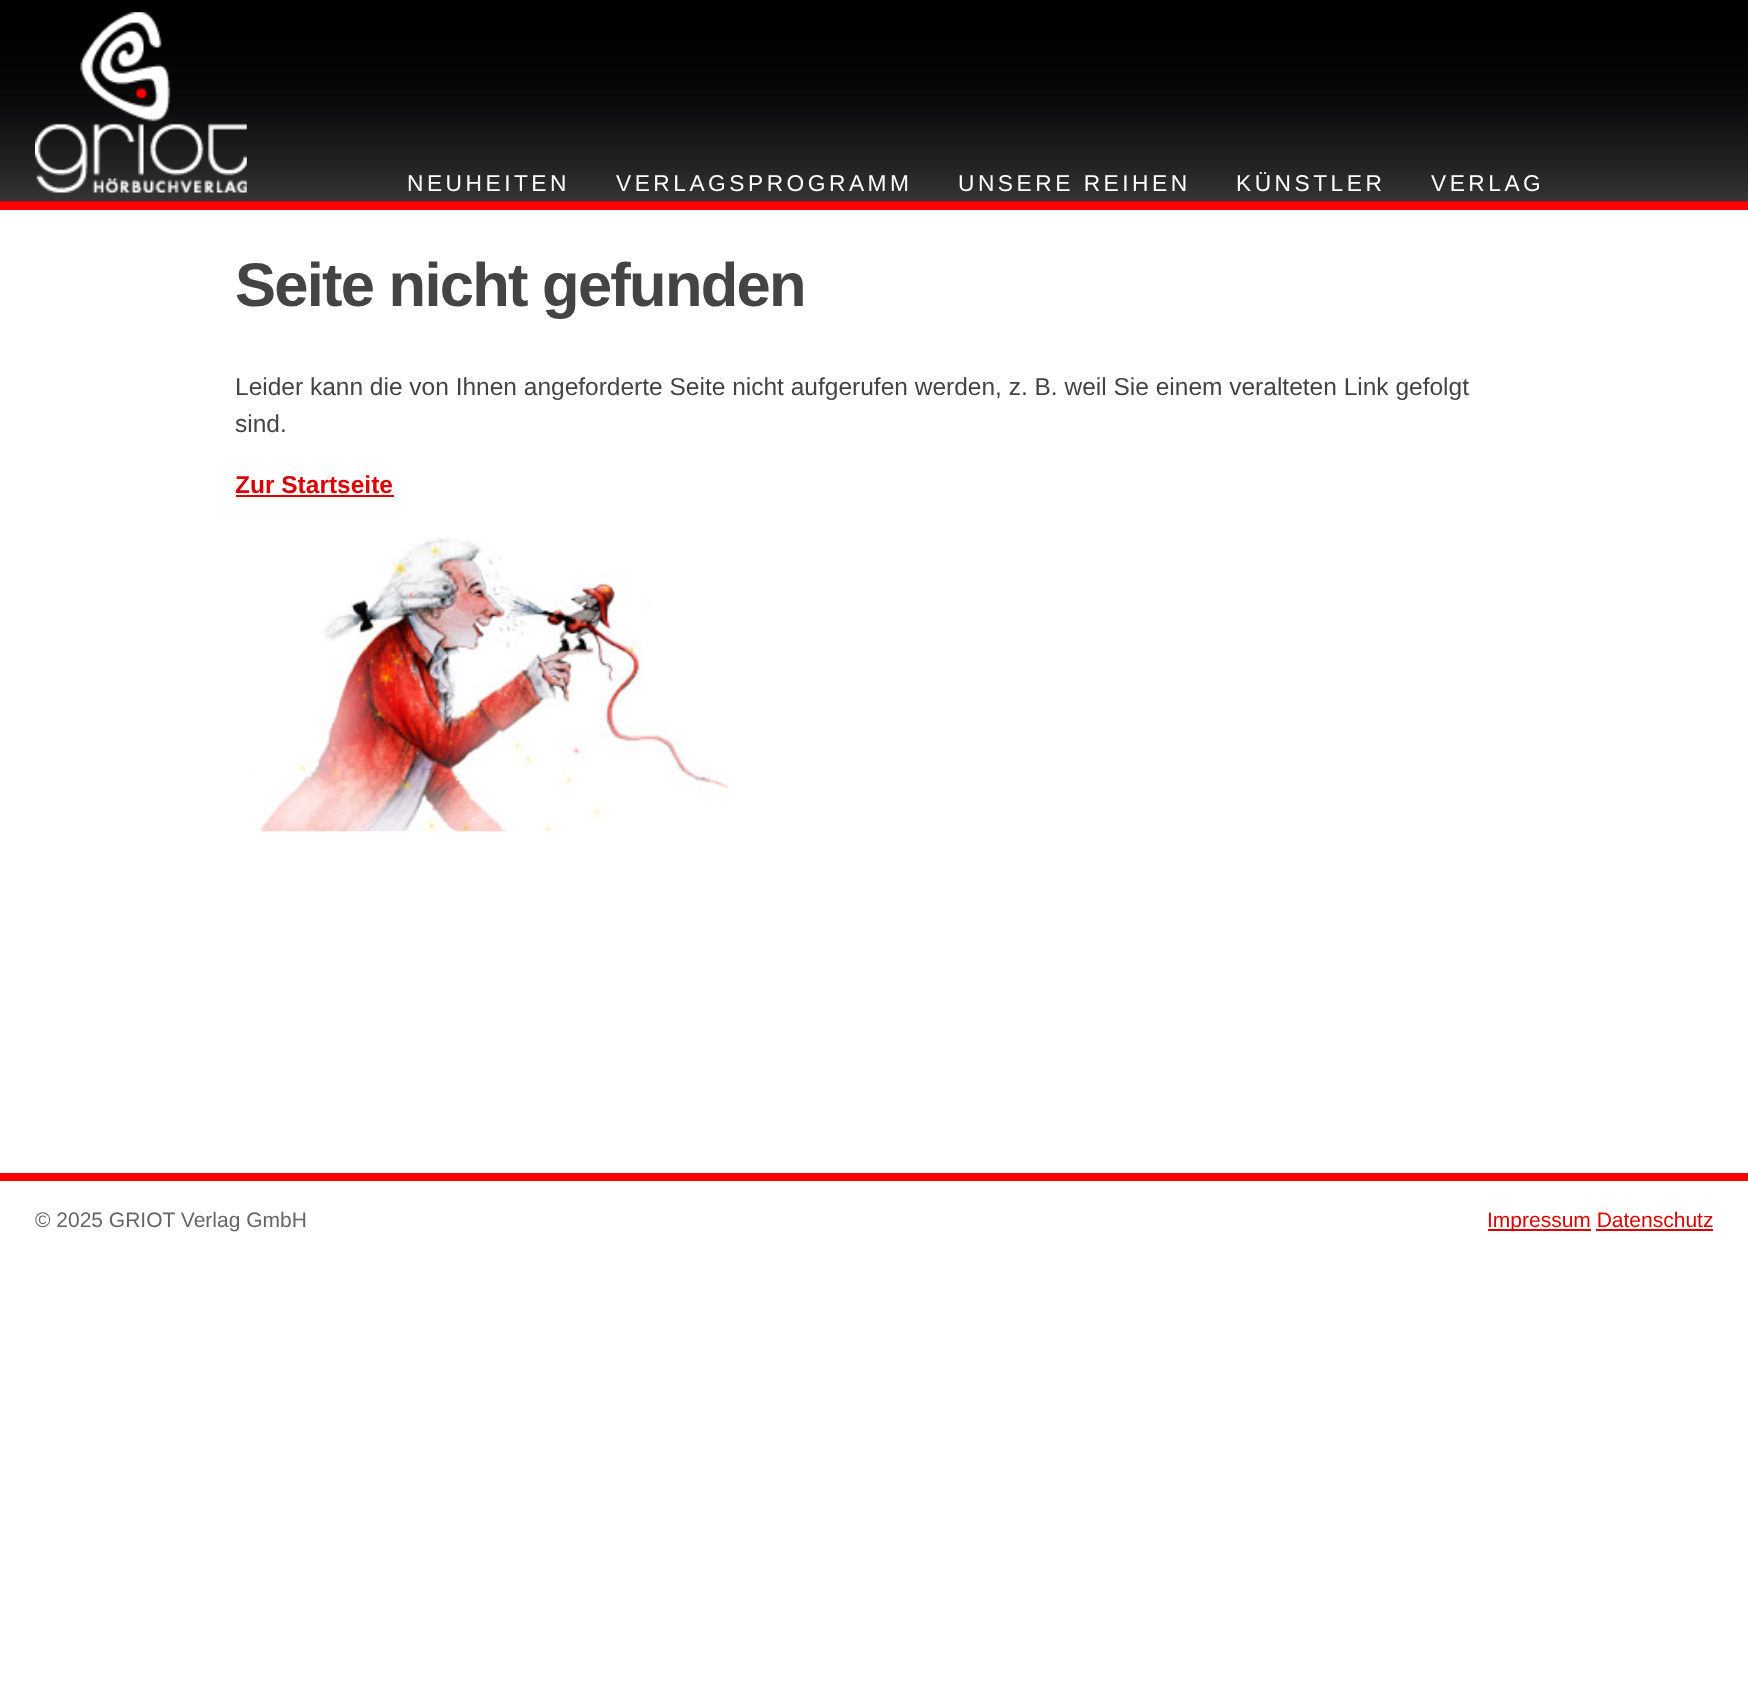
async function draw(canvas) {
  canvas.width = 1748;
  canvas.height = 1681;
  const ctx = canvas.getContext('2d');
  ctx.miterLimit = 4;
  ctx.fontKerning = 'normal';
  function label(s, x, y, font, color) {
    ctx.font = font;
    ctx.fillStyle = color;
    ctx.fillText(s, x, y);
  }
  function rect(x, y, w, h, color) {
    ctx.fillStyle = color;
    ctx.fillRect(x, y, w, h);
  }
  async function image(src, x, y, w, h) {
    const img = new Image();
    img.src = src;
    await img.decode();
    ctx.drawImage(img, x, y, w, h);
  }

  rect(0, 0, 1748, 1681, '#fff');
  rect(0, 0, 1748, 41, '#000');
  await image('assets/img1.png', 0, 41, 1748, 169);
  await image('assets/img2.png', 35, 12, 212, 181);
  ctx.letterSpacing = '3.5px';
  label('NEUHEITEN', 407, 191, '22.75px Liberation Sans', '#fff');
  label('VERLAGSPROGRAMM', 616, 191, '22.75px Liberation Sans', '#fff');
  label('UNSERE REIHEN', 958, 191, '22.75px Liberation Sans', '#fff');
  label('KÜNSTLER', 1236, 191, '22.75px Liberation Sans', '#fff');
  label('VERLAG', 1431, 191, '22.75px Liberation Sans', '#fff');
  ctx.letterSpacing = '-1.75px';
  label('Seite nicht gefunden', 235, 306, 'bold 61.5px Liberation Sans', '#444');
  ctx.letterSpacing = '0px';
  label('Leider kann die von Ihnen angeforderte Seite nicht aufgerufen werden, z. B. weil Sie einem veralteten Link gefolgt', 235, 395, '24.5px Liberation Sans', '#444');
  label('sind.', 235, 432, '24.5px Liberation Sans', '#444');
  label('Zur Startseite', 235, 493, 'bold 24.5px Liberation Sans', '#d00');
  rect(236, 495, 158, 2, '#d00');
  await image('assets/img3.png', 246, 537, 482, 295);
  rect(0, 1173, 1748, 8, '#f00');
  label('© 2025 GRIOT Verlag GmbH', 35, 1227, '21px Liberation Sans', '#666');
  rect(1488, 1229, 103, 2, '#d00');
  label('Impressum Datenschutz', 1487, 1227, '21px Liberation Sans', '#d00');
  rect(1596, 1229, 117, 2, '#d00');
}

draw(document.querySelector('canvas'));
